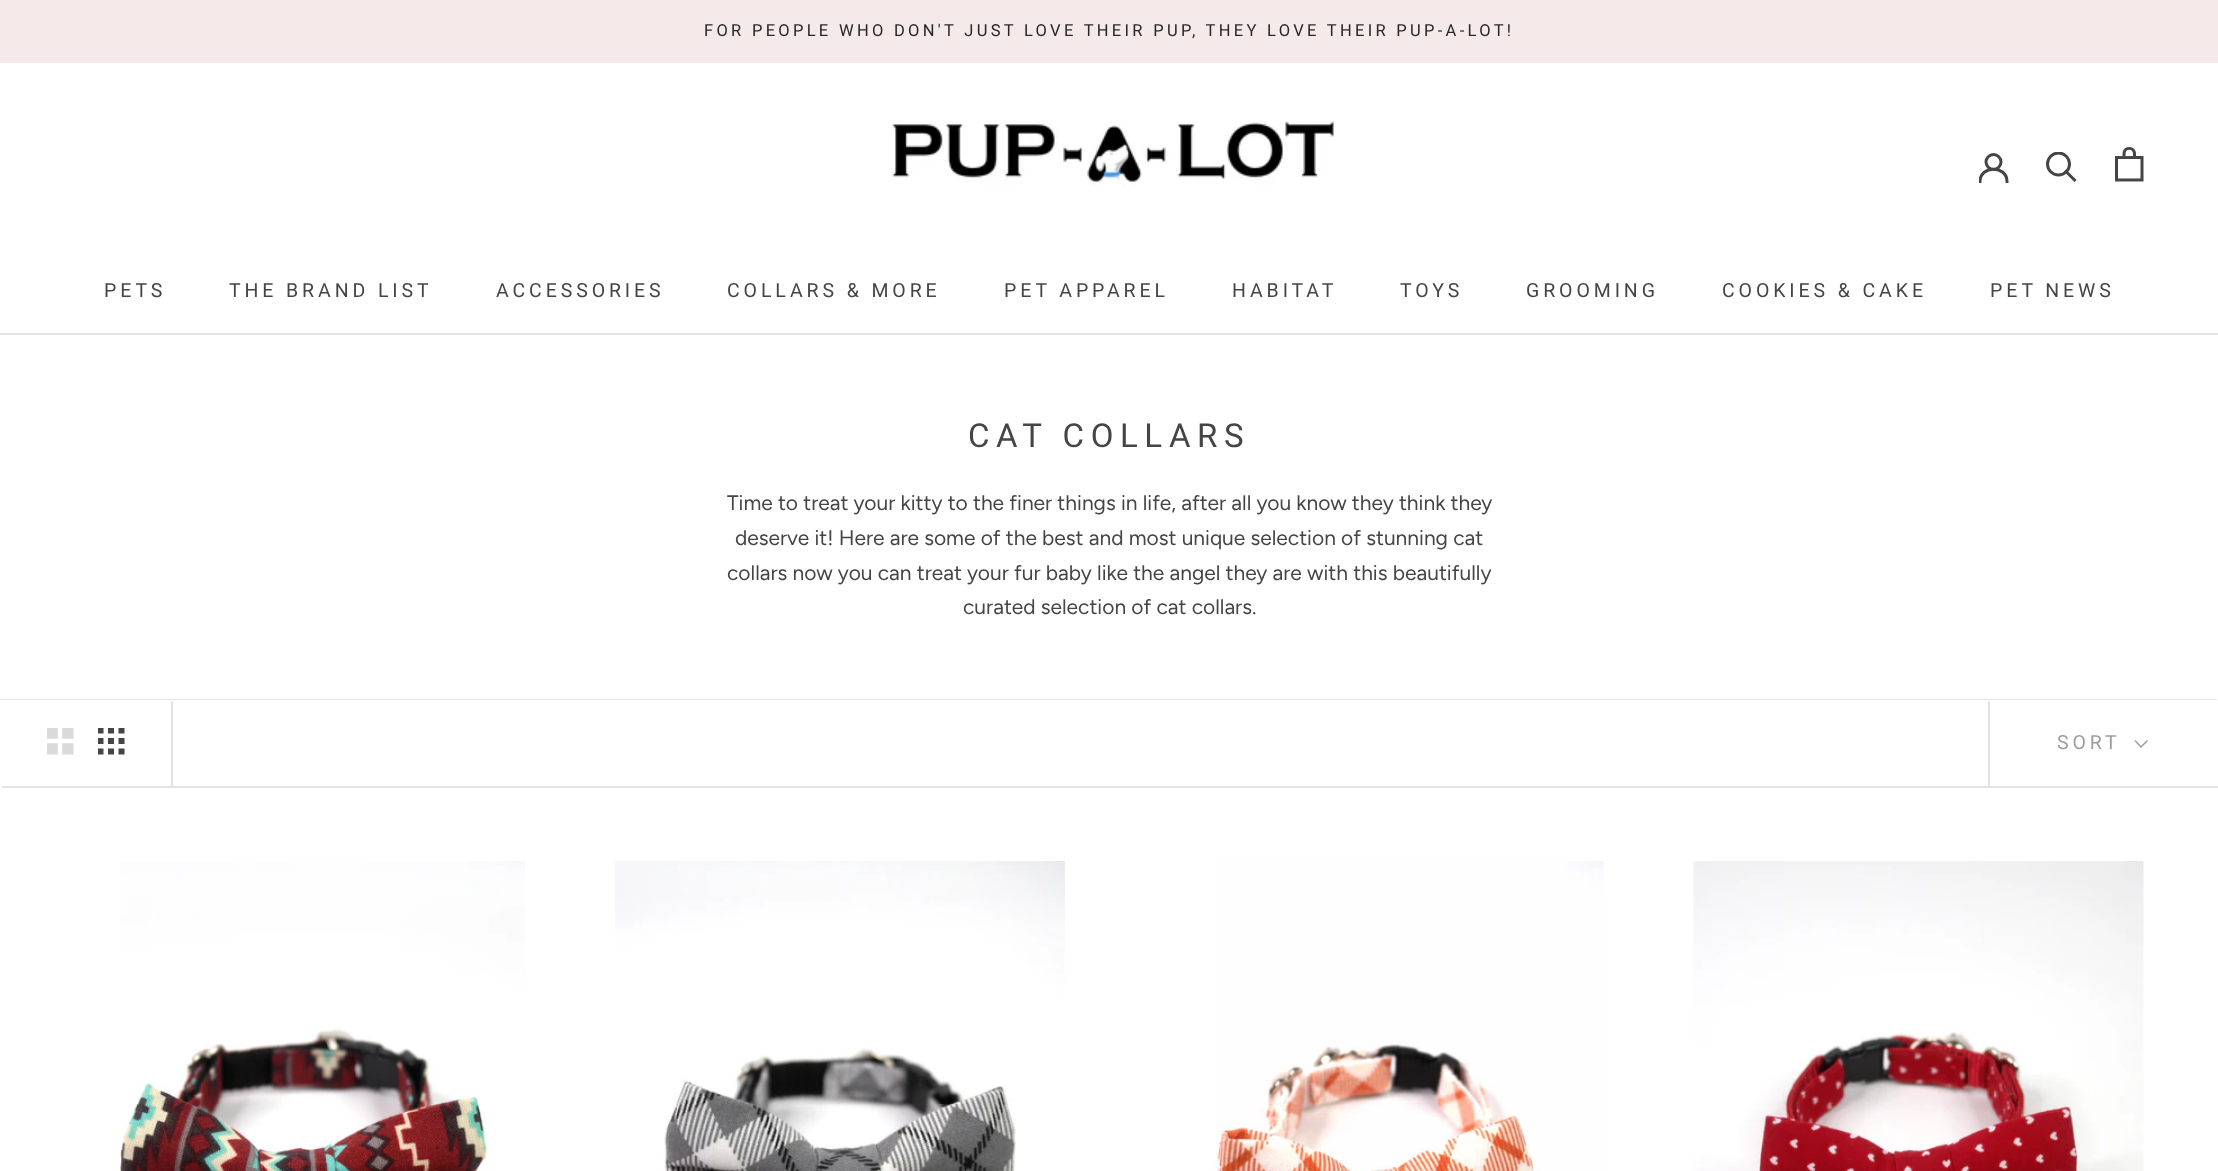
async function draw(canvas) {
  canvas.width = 2218;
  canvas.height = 1171;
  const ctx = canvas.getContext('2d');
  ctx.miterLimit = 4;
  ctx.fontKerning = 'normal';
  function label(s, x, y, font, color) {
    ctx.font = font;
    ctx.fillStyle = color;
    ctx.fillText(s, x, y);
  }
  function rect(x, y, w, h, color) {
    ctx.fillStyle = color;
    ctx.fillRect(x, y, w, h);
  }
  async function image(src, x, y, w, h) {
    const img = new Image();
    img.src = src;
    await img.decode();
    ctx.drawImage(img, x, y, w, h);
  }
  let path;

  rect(0, 0, 2218, 1171, '#fff');
  rect(0, 0, 2218, 63, '#f5e9e9');
  ctx.letterSpacing = '3.3px';
  label('FOR PEOPLE WHO DON\'T JUST LOVE THEIR PUP, THEY LOVE THEIR PUP-A-LOT!', 704, 36, '16.5px Roboto', '#282828');
  rect(0, 333, 2218, 2, '#e3e3e3');
  await image('assets/img1.png', 891, 120, 443, 66);
  ctx.save();
  ctx.beginPath();
  ctx.rect(1979, 153, 30, 30);
  ctx.clip();
  path = new Path2D('M1980 181.5C1980 165 2007 165 2007 181.5');
  ctx.strokeStyle = '#454545';
  ctx.lineWidth = 3;
  ctx.lineCap = 'square';
  ctx.stroke(path);
  ctx.restore();
  ctx.beginPath();
  ctx.arc(1993.5, 162, 7.5, 0, 2 * Math.PI);
  ctx.strokeStyle = '#454545';
  ctx.lineWidth = 3;
  ctx.stroke();
  path = new Path2D('M2074.5 180L2066 171.5');
  ctx.lineCap = 'square';
  ctx.stroke(path);
  ctx.save();
  ctx.beginPath();
  ctx.rect(2046, 152, 32, 31);
  ctx.clip();
  ctx.beginPath();
  ctx.arc(2058.5, 164, 11, 0, 2 * Math.PI);
  ctx.stroke();
  ctx.restore();
  await image('assets/img2.png', 2115, 147, 29, 35);
  ctx.letterSpacing = '3.9px';
  label('PETS', 104, 297, '19.5px Roboto', '#454545');
  label('THE BRAND LIST', 229, 297, '19.5px Roboto', '#454545');
  label('ACCESSORIES', 496, 297, '19.5px Roboto', '#454545');
  label('COLLARS & MORE', 727, 297, '19.5px Roboto', '#454545');
  label('PET APPAREL', 1004, 297, '19.5px Roboto', '#454545');
  label('HABITAT', 1232, 297, '19.5px Roboto', '#454545');
  label('TOYS', 1400, 297, '19.5px Roboto', '#454545');
  label('GROOMING', 1526, 297, '19.5px Roboto', '#454545');
  label('COOKIES & CAKE', 1722, 297, '19.5px Roboto', '#454545');
  label('PET NEWS', 1990, 297, '19.5px Roboto', '#454545');
  ctx.letterSpacing = '6.6px';
  label('CAT COLLARS', 968, 447, '33px Roboto', '#454545');
  ctx.letterSpacing = '0px';
  label('Time to treat your kitty to the finer things in life, after all you know they think they', 727, 510, '21px Figtree', '#454545');
  label('deserve it! Here are some of the best and most unique selection of stunning cat', 735, 545, '21px Figtree', '#454545');
  label('collars now you can treat your fur baby like the angel they are with this beautifully', 727, 580, '21px Figtree', '#454545');
  label('curated selection of cat collars.', 963, 614, '21px Figtree', '#454545');
  ctx.fillStyle = '#e3e3e3';
  path = new Path2D('M-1 699V785H0V700H2217V699Z');
  ctx.fill(path);
  path = new Path2D('M2 786V788H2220V702H2218V786Z');
  ctx.fill(path);
  rect(171, 701, 2, 85, '#e3e3e3');
  await image('assets/img3.png', 47, 728, 27, 27);
  await image('assets/img4.png', 98, 728, 27, 27);
  rect(1988, 701, 2, 85, '#e3e3e3');
  ctx.letterSpacing = '3.9px';
  label('SORT', 2057, 749, '19.5px Roboto', '#9d9d9d');
  path = new Path2D('M2147 741L2141 747L2135.5 741');
  ctx.strokeStyle = '#9d9d9d';
  ctx.lineWidth = 1.5;
  ctx.stroke(path);
  await image('assets/img5.png', 120, 861, 405, 310);
  await image('assets/img6.png', 615, 861, 450, 310);
  await image('assets/img7.png', 1215, 861, 389, 310);
  await image('assets/img8.png', 1693, 861, 451, 310);
}

draw(document.querySelector('canvas'));
